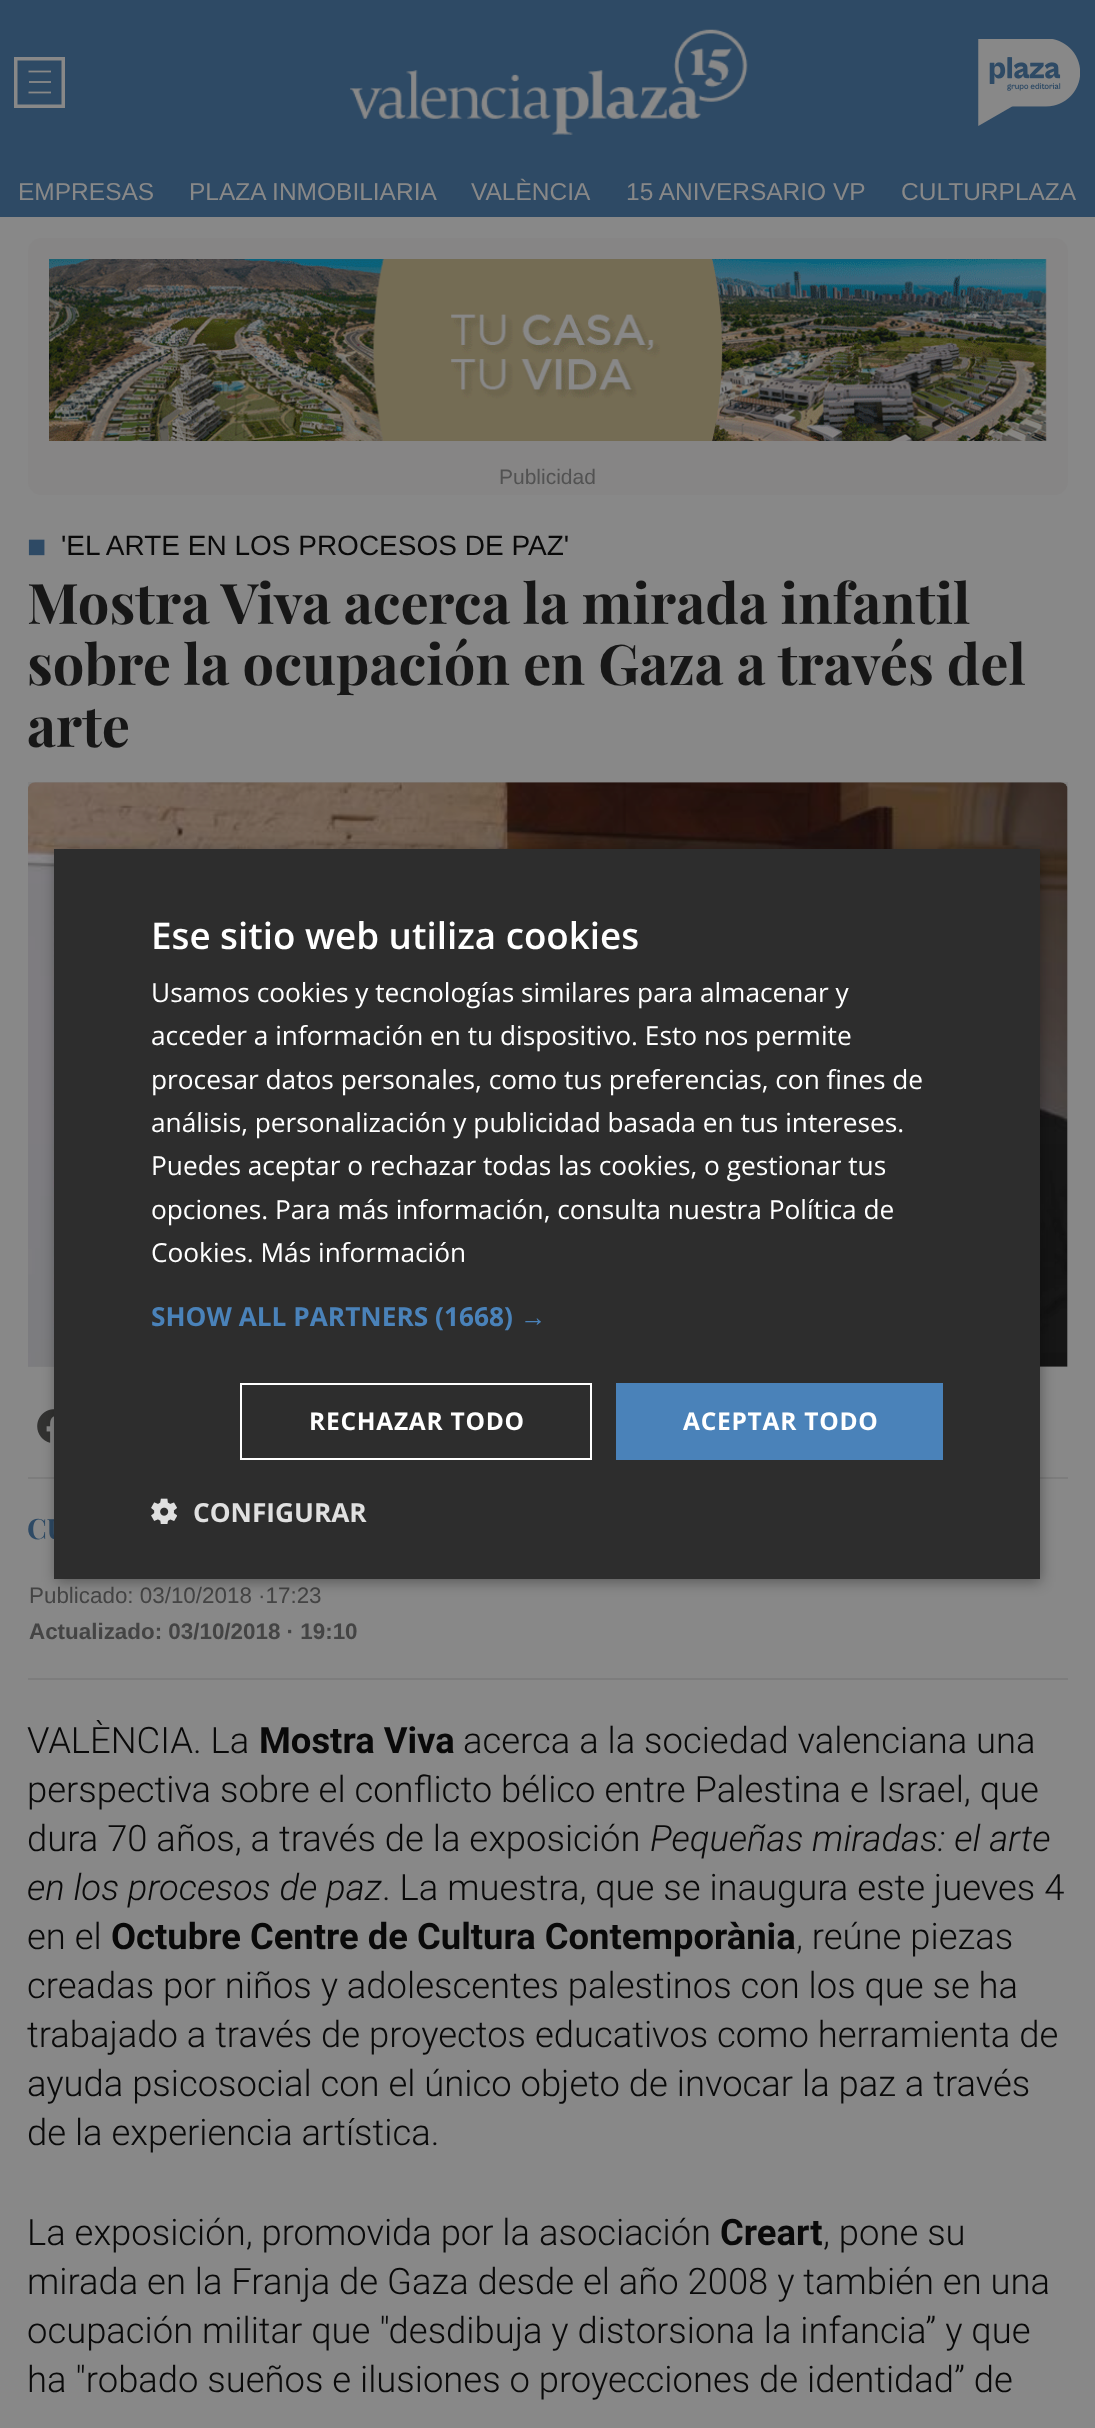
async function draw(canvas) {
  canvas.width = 1095;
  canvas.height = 2428;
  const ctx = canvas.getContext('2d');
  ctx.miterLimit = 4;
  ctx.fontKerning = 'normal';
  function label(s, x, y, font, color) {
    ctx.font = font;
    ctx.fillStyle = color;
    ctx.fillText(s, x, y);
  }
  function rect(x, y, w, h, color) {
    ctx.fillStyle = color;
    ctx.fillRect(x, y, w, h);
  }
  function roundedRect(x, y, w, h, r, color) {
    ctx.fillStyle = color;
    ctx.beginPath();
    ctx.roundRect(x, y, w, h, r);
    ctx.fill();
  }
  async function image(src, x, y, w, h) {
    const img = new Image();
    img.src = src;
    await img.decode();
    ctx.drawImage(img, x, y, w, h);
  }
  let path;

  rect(0, 0, 1095, 2428, '#888');
  rect(0, 0, 1095, 217, '#2e4a65');
  ctx.strokeStyle = '#888';
  ctx.lineWidth = 3.5;
  ctx.strokeRect(15.75, 58.75, 47.5, 47.5);
  path = new Path2D('M28.5 71.5H51');
  ctx.lineWidth = 1.8;
  ctx.stroke(path);
  rect(29, 81, 22, 2, '#7f8285');
  path = new Path2D('M28.5 92.5H51');
  ctx.stroke(path);
  await image('assets/img1.png', 350, 29, 398, 106);
  await image('assets/img2.png', 978, 39, 102, 87);
  label('EMPRESAS', 18, 200, '24.5px Liberation Sans', '#888');
  label('PLAZA INMOBILIARIA', 189, 200, '24.5px Liberation Sans', '#888');
  label('VALÈNCIA', 471, 200, '24.5px Liberation Sans', '#888');
  label('15 ANIVERSARIO VP', 626, 200, '24.5px Liberation Sans', '#888');
  label('CULTURPLAZA', 901, 200, '24.5px Liberation Sans', '#888');
  roundedRect(28, 238, 1040, 257, 14, '#868585');
  await image('assets/img3.png', 49, 259, 998, 182);
  label('Publicidad', 499, 484, '21px Liberation Sans', '#525252');
  label('■', 27, 557, '32px Liberation Sans', '#2e4a65');
  label('\'EL ARTE EN LOS PROCESOS DE PAZ\'', 61, 555, '28px Liberation Sans', '#090909');
  label('Mostra Viva acerca la mirada infantil', 27, 624, 'bold 56px Playfair Display', '#171717');
  label('sobre la ocupación en Gaza a través del', 27, 685, 'bold 56px Playfair Display', '#171717');
  label('arte', 27, 747, 'bold 56px Playfair Display', '#171717');
  rect(28, 782, 1040, 585, '#818181');
  await image('assets/img4.png', 28, 782, 1040, 585);
  rect(28, 1477, 1040, 2, '#7d7d7d');
  await image('assets/img5.png', 37, 1409, 17, 34);
  rect(28, 1678, 1040, 2, '#7d7d7d');
  label('CU', 27, 1539, 'bold 28px Playfair Display', '#2e4a65');
  label('Publicado: 03/10/2018 ·17:23', 29, 1603, '22.4px Liberation Sans', '#444');
  label('Actualizado: 03/10/2018 · 19:10', 29, 1639, 'bold 22.4px Liberation Sans', '#444');
  label('VALÈNCIA. La', 27, 1753, '300 36.4px Roboto', '#090909');
  label('Mostra Viva', 259, 1753, 'bold 36.4px Roboto', '#090909');
  label('acerca a la sociedad valenciana una', 463, 1753, '300 36.4px Roboto', '#090909');
  label('perspectiva sobre el conflicto bélico entre Palestina e Israel, que', 27, 1802, '300 36.4px Roboto', '#090909');
  label('dura 70 años, a través de la exposición', 27, 1851, '300 36.4px Roboto', '#090909');
  label('Pequeñas miradas: el arte', 650, 1851, 'italic 300 36.4px Roboto', '#090909');
  label('en los procesos de paz', 27, 1900, 'italic 300 36.4px Roboto', '#090909');
  label('. La muestra, que se inaugura este jueves 4', 382, 1900, '300 36.4px Roboto', '#090909');
  label('en el', 27, 1949, '300 36.4px Roboto', '#090909');
  label('Octubre Centre de Cultura Contemporània', 111, 1949, 'bold 36.4px Roboto', '#090909');
  label(', reúne piezas', 796, 1949, '300 36.4px Roboto', '#090909');
  label('creadas por niños y adolescentes palestinos con los que se ha', 27, 1998, '300 36.4px Roboto', '#090909');
  label('trabajado a través de proyectos educativos como herramienta de', 27, 2047, '300 36.4px Roboto', '#090909');
  label('ayuda psicosocial con el único objeto de invocar la paz a través', 27, 2096, '300 36.4px Roboto', '#090909');
  label('de la experiencia artística.', 27, 2145, '300 36.4px Roboto', '#090909');
  label('La exposición, promovida por la asociación', 27, 2245, '300 36.4px Roboto', '#090909');
  label('Creart', 720, 2245, 'bold 36.4px Roboto', '#090909');
  label(', pone su', 823, 2245, '300 36.4px Roboto', '#090909');
  label('mirada en la Franja de Gaza desde el año 2008 y también en una', 27, 2294, '300 36.4px Roboto', '#090909');
  label('ocupación militar que "desdibuja y distorsiona la infancia” y que', 27, 2343, '300 36.4px Roboto', '#090909');
  label('ha "robado sueños e ilusiones o proyecciones de identidad” de', 27, 2392, '300 36.4px Roboto', '#090909');
  ctx.fillStyle = '#00000059';
  ctx.filter = 'blur(7px)';
  ctx.beginPath();
  ctx.rect(56, 852, 985, 730);
  ctx.fill();
  ctx.filter = 'none';
  rect(54, 849, 986, 730, '#2d2d2d');
  label('Ese sitio web utiliza cookies', 151, 949, '600 36.75px Open Sans', '#fff');
  label('Usamos cookies y tecnologías similares para almacenar y', 151, 1002, '26.25px Open Sans', '#fff');
  label('acceder a información en tu dispositivo. Esto nos permite', 151, 1045, '26.25px Open Sans', '#fff');
  label('procesar datos personales, como tus preferencias, con fines de', 151, 1089, '26.25px Open Sans', '#fff');
  label('análisis, personalización y publicidad basada en tus intereses.', 151, 1132, '26.25px Open Sans', '#fff');
  label('Puedes aceptar o rechazar todas las cookies, o gestionar tus', 151, 1175, '26.25px Open Sans', '#fff');
  label('opciones. Para más información, consulta nuestra Política de', 151, 1219, '26.25px Open Sans', '#fff');
  label('Cookies. Más información', 151, 1262, '26.25px Open Sans', '#fff');
  label('SHOW ALL PARTNERS (1668)', 151, 1326, 'bold 26.25px Open Sans', '#4a82b9');
  label('→', 520, 1326, 'bold 26.25px Liberation Sans', '#4a82b9');
  ctx.strokeStyle = '#fff';
  ctx.lineWidth = 2;
  ctx.strokeRect(241, 1384, 350, 75);
  ctx.letterSpacing = '0.75px';
  label('RECHAZAR TODO', 309, 1430, 'bold 24.5px Open Sans', '#fff');
  rect(616, 1383, 327, 77, '#4a82b9');
  label('ACEPTAR TODO', 683, 1430, 'bold 24.5px Open Sans', '#fff');
  await image('assets/img6.png', 151, 1498, 26, 26);
  ctx.letterSpacing = '0px';
  label('CONFIGURAR', 193, 1522, 'bold 26.25px Open Sans', '#e0e0e0');
}

draw(document.querySelector('canvas'));
